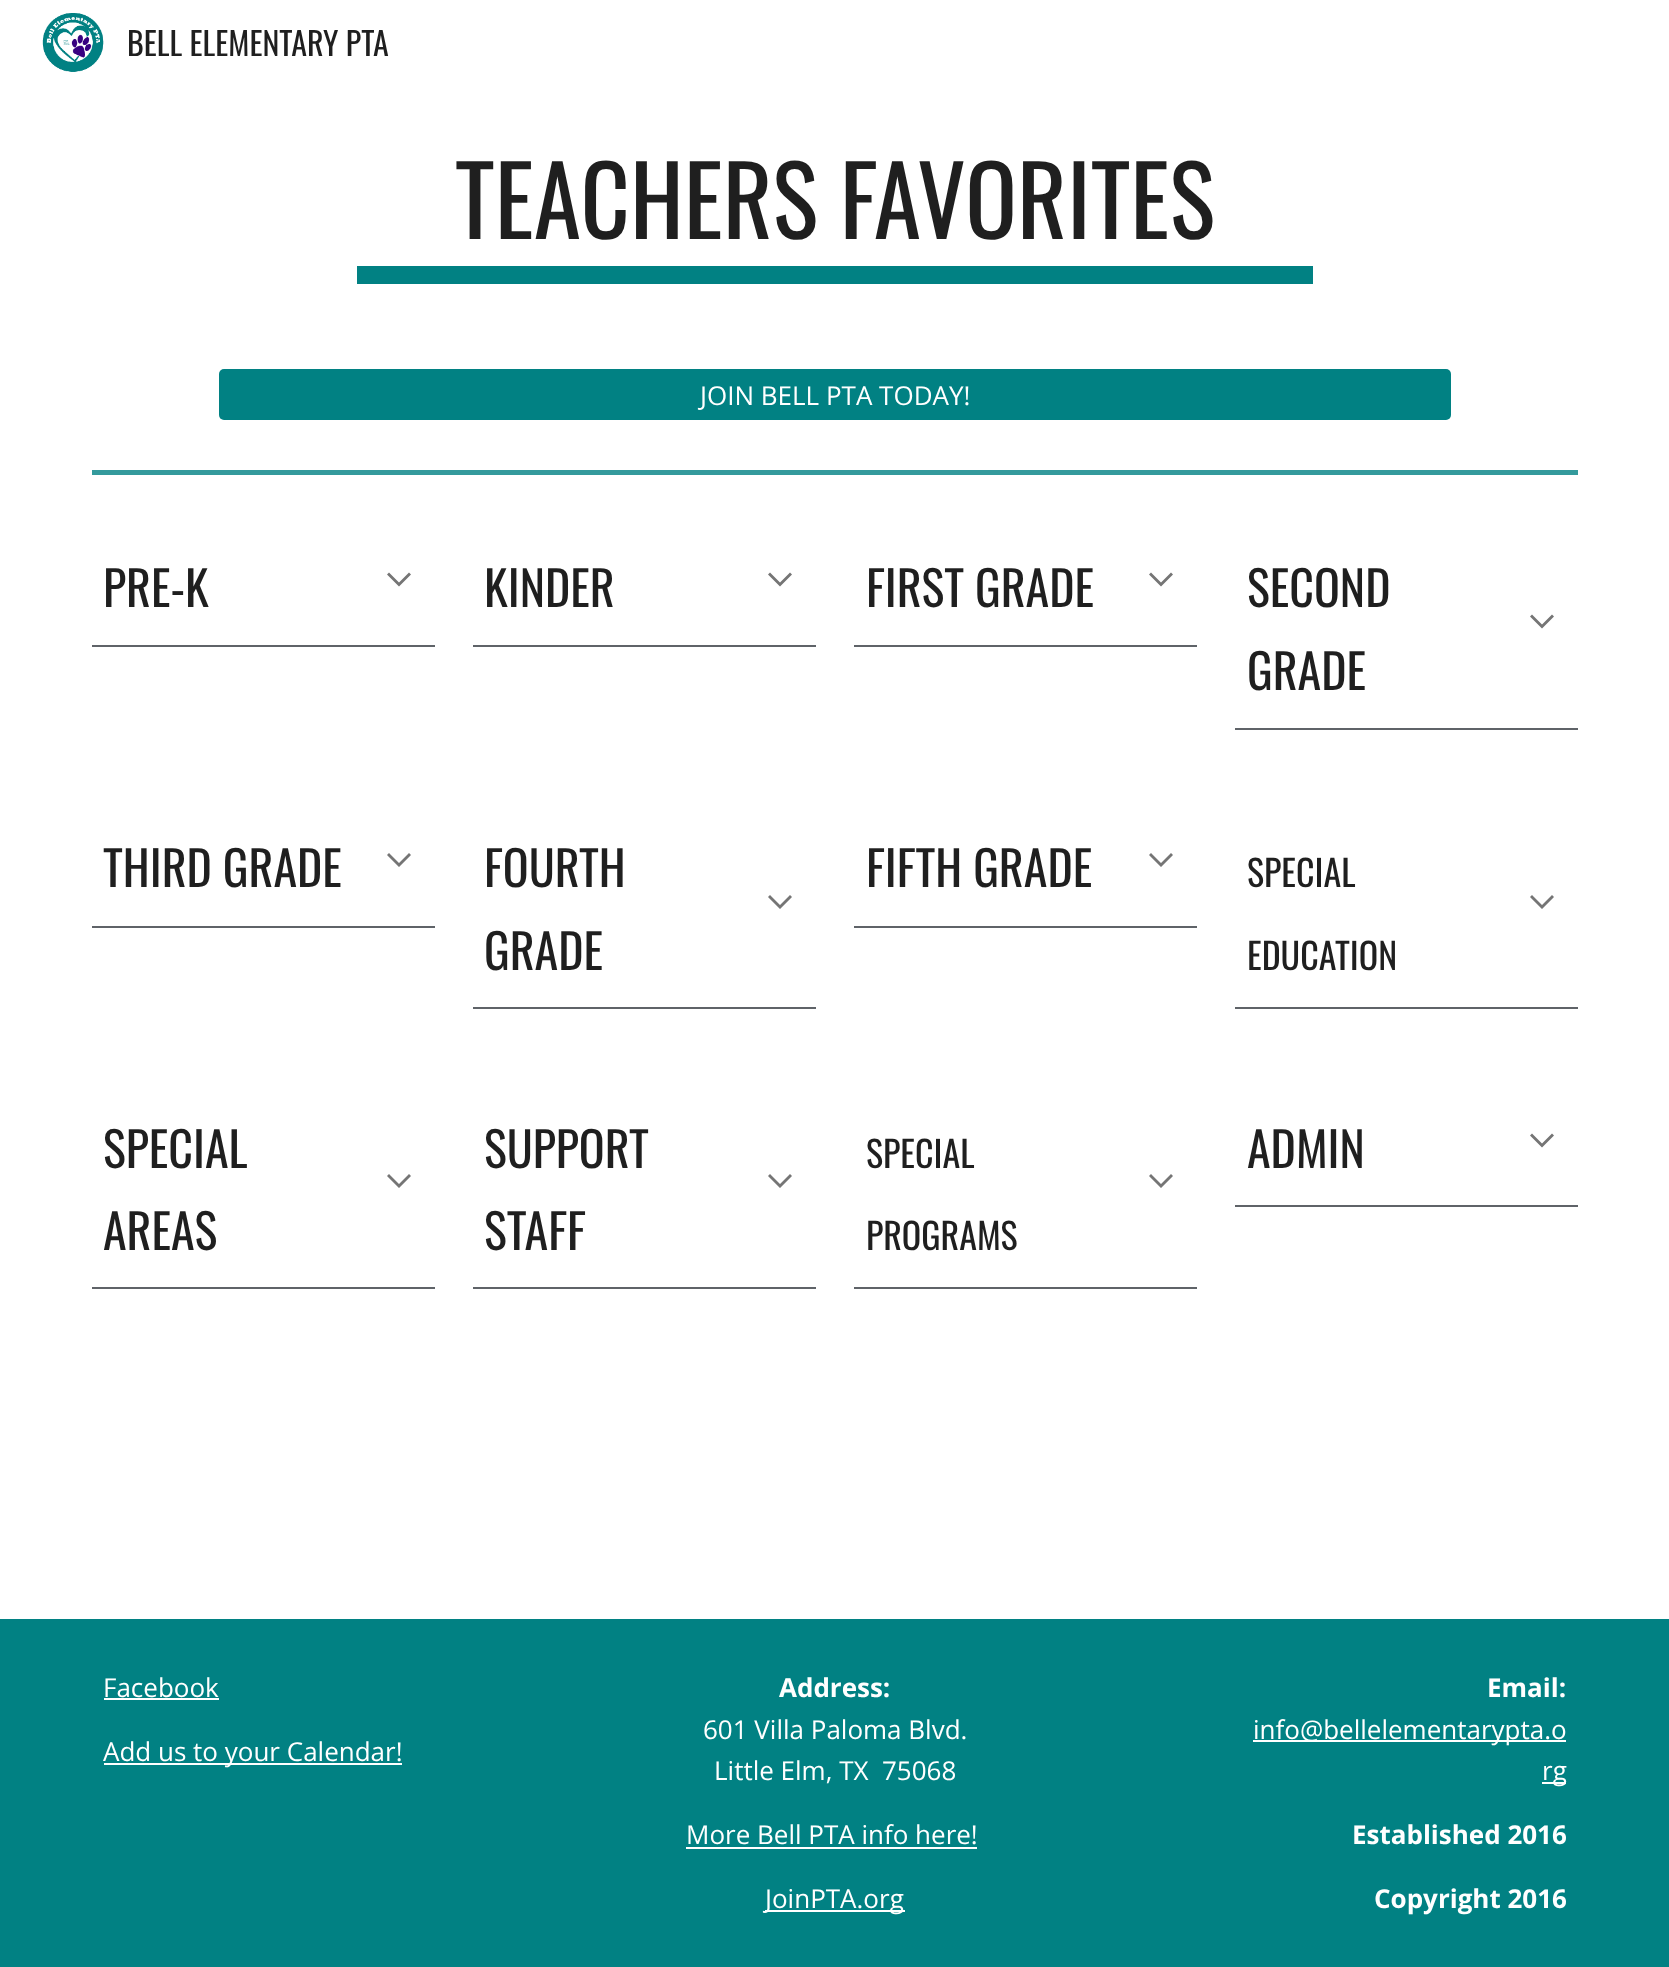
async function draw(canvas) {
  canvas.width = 1669;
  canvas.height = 1967;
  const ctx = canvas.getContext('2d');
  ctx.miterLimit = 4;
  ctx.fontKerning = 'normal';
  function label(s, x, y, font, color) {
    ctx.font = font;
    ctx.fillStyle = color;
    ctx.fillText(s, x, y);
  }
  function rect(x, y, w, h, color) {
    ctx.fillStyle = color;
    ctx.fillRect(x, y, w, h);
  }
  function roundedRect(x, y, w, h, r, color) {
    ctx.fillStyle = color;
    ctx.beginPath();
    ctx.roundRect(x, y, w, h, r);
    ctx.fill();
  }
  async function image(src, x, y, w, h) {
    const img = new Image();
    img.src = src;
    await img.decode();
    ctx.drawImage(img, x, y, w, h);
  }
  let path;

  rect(0, 0, 1669, 1967, '#fff');
  await image('assets/img1.png', 42, 13, 62, 59);
  label('BELL ELEMENTARY PTA', 127, 56, '32px Oswald', '#1f1f1f');
  label('TEACHERS FAVORITES', 455, 239, '96px Oswald', '#1f1f1f');
  rect(357, 266, 956, 18, '#018183');
  roundedRect(219, 369, 1232, 51, 5, '#018183');
  label('JOIN BELL PTA TODAY!', 700, 405, '26px Open Sans', '#fff');
  rect(92, 470, 1486, 5, '#349a9c');
  rect(92, 645, 343, 2, '#5f6368');
  label('PRE-K', 103, 607, '48px Oswald', '#1f1f1f');
  ctx.fillStyle = '#757575';
  path = new Path2D('M389 572.5L387 574.5L399 586.5L411 574.5L409 572.5L399 582.5');
  ctx.fill(path);
  rect(473, 645, 343, 2, '#5f6368');
  label('KINDER', 484, 607, '48px Oswald', '#1f1f1f');
  ctx.fillStyle = '#757575';
  path = new Path2D('M770 572.5L768 574.5L780 586.5L792 574.5L790 572.5L780 582.5');
  ctx.fill(path);
  rect(854, 645, 343, 2, '#5f6368');
  label('FIRST GRADE', 866, 607, '48px Oswald', '#1f1f1f');
  ctx.fillStyle = '#757575';
  path = new Path2D('M1151 572.5L1149 574.5L1161 586.5L1173 574.5L1171 572.5L1161 582.5');
  ctx.fill(path);
  rect(1235, 728, 343, 2, '#5f6368');
  label('SECOND', 1247, 607, '48px Oswald', '#1f1f1f');
  label('GRADE', 1247, 690, '48px Oswald', '#1f1f1f');
  ctx.fillStyle = '#757575';
  path = new Path2D('M1532 614.5L1530 616.5L1542 628.5L1554 616.5L1552 614.5L1542 624.5');
  ctx.fill(path);
  rect(92, 926, 343, 2, '#5f6368');
  label('THIRD GRADE', 103, 887, '48px Oswald', '#1f1f1f');
  ctx.fillStyle = '#757575';
  path = new Path2D('M389 853L387 855L399 867L411 855L409 853L399 863');
  ctx.fill(path);
  rect(473, 1007, 343, 2, '#5f6368');
  label('FOURTH', 484, 887, '48px Oswald', '#1f1f1f');
  label('GRADE', 484, 970, '48px Oswald', '#1f1f1f');
  ctx.fillStyle = '#757575';
  path = new Path2D('M770 895L768 897L780 909L792 897L790 895L780 905');
  ctx.fill(path);
  rect(854, 926, 343, 2, '#5f6368');
  label('FIFTH GRADE', 866, 887, '48px Oswald', '#1f1f1f');
  ctx.fillStyle = '#757575';
  path = new Path2D('M1151 853L1149 855L1161 867L1173 855L1171 853L1161 863');
  ctx.fill(path);
  rect(1235, 1007, 343, 2, '#5f6368');
  label('SPECIAL', 1247, 887, '36px Oswald', '#1f1f1f');
  label('EDUCATION', 1247, 970, '36px Oswald', '#1f1f1f');
  ctx.fillStyle = '#757575';
  path = new Path2D('M1532 895L1530 897L1542 909L1554 897L1552 895L1542 905');
  ctx.fill(path);
  rect(92, 1287, 343, 2, '#5f6368');
  label('SPECIAL', 103, 1168, '48px Oswald', '#1f1f1f');
  label('AREAS', 103, 1250, '48px Oswald', '#1f1f1f');
  ctx.fillStyle = '#757575';
  path = new Path2D('M389 1174L387 1176L399 1188L411 1176L409 1174L399 1184');
  ctx.fill(path);
  rect(473, 1287, 343, 2, '#5f6368');
  label('SUPPORT', 484, 1168, '48px Oswald', '#1f1f1f');
  label('STAFF', 484, 1250, '48px Oswald', '#1f1f1f');
  ctx.fillStyle = '#757575';
  path = new Path2D('M770 1174L768 1176L780 1188L792 1176L790 1174L780 1184');
  ctx.fill(path);
  rect(854, 1287, 343, 2, '#5f6368');
  label('SPECIAL', 866, 1168, '36px Oswald', '#1f1f1f');
  label('PROGRAMS', 866, 1250, '36px Oswald', '#1f1f1f');
  ctx.fillStyle = '#757575';
  path = new Path2D('M1151 1174L1149 1176L1161 1188L1173 1176L1171 1174L1161 1184');
  ctx.fill(path);
  rect(1235, 1205, 343, 2, '#5f6368');
  label('ADMIN', 1247, 1168, '48px Oswald', '#1f1f1f');
  ctx.fillStyle = '#757575';
  path = new Path2D('M1532 1133.5L1530 1135.5L1542 1147.5L1554 1135.5L1552 1133.5L1542 1143.5');
  ctx.fill(path);
  rect(0, 1619, 1669, 348, '#018183');
  label('Facebook', 103, 1697, '26px Open Sans', '#fff');
  rect(104, 1698, 115, 2, '#fff');
  rect(104, 1763, 298, 2, '#fff');
  label('Add us to your Calendar!', 103, 1761, '26px Open Sans', '#fff');
  label('Address:', 779, 1697, 'bold 26px Open Sans', '#fff');
  label('601 Villa Paloma Blvd.', 703, 1739, '26px Open Sans', '#fff');
  label('Little Elm, TX  75068', 714, 1780, '26px Open Sans', '#fff');
  label('More Bell PTA info here!', 686, 1844, '26px Open Sans', '#fff');
  rect(686, 1847, 291, 2, '#fff');
  rect(765, 1910, 140, 2, '#fff');
  label('JoinPTA.org', 765, 1908, '26px Open Sans', '#fff');
  label('Email:', 1487, 1697, 'bold 26px Open Sans', '#fff');
  rect(1253, 1740, 313, 2, '#fff');
  label('info@bellelementarypta.o', 1253, 1739, '26px Open Sans', '#fff');
  rect(1542, 1782, 24, 2, '#fff');
  label('rg', 1542, 1780, '26px Open Sans', '#fff');
  label('Established 2016', 1352, 1844, 'bold 26px Open Sans', '#fff');
  label('Copyright 2016', 1374, 1908, 'bold 26px Open Sans', '#fff');
}

draw(document.querySelector('canvas'));
